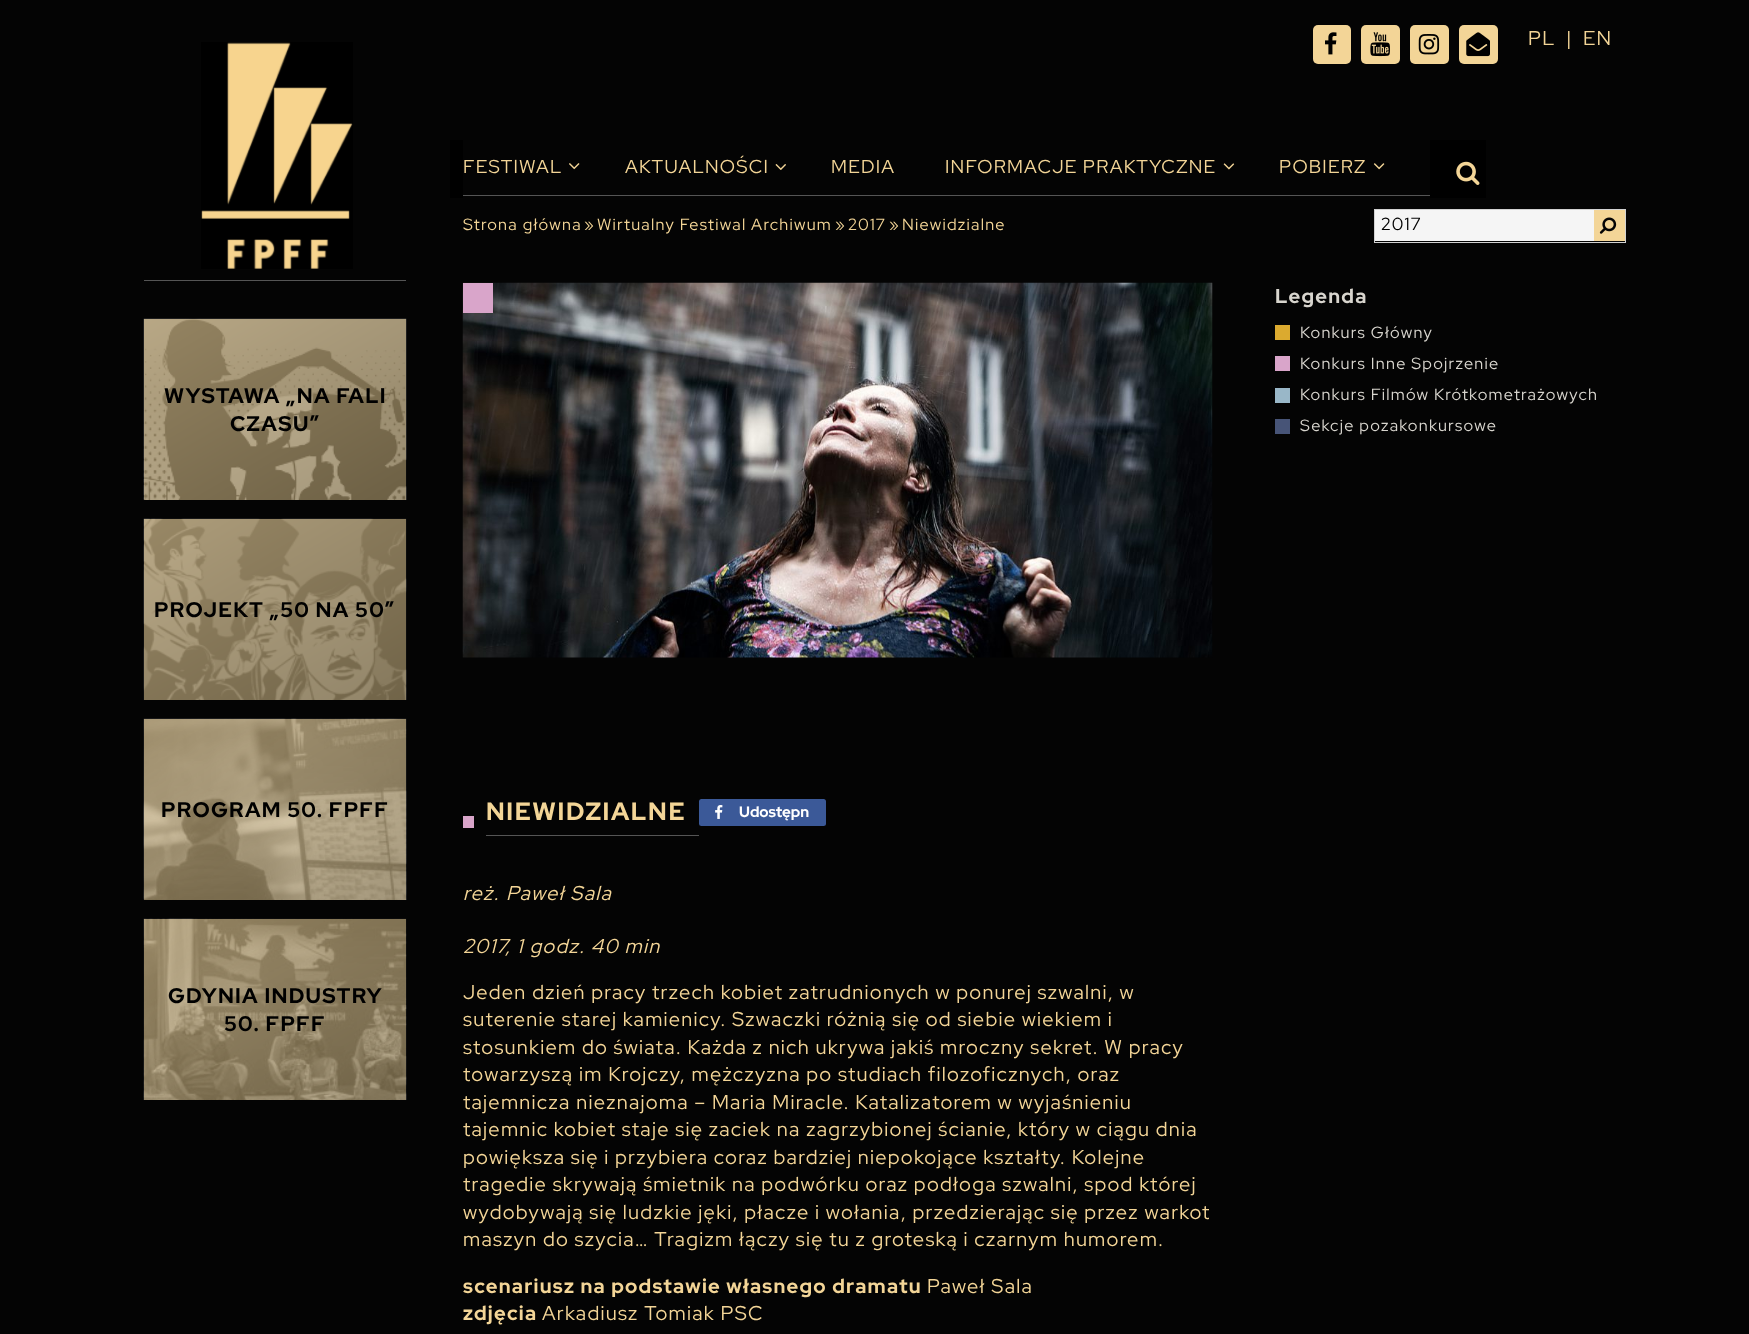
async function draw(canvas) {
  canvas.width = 1749;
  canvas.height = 1334;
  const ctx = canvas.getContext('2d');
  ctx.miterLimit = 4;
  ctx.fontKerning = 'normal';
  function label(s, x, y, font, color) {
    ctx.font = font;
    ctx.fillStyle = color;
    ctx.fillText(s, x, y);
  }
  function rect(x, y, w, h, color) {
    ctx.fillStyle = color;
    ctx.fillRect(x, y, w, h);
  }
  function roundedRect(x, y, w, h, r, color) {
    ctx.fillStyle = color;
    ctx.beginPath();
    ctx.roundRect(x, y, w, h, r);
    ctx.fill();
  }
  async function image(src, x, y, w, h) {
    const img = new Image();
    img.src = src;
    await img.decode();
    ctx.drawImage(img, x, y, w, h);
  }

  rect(0, 0, 1749, 1334, '#040404');
  await image('assets/img1.png', 201, 42, 152, 227);
  rect(144, 280, 262, 1, '#555');
  await image('assets/img2.png', 143, 318, 264, 182);
  ctx.letterSpacing = '1.25px';
  label('WYSTAWA „NA FALI', 164, 403, 'bold 21.25px Red Hat Display', '#000');
  label('CZASU”', 230, 431, 'bold 21.25px Red Hat Display', '#000');
  await image('assets/img3.png', 143, 518, 264, 182);
  label('PROJEKT „50 NA 50”', 154, 617, 'bold 21.25px Red Hat Display', '#000');
  await image('assets/img4.png', 143, 718, 264, 182);
  label('PROGRAM 50. FPFF', 161, 817, 'bold 21.25px Red Hat Display', '#000');
  await image('assets/img5.png', 143, 918, 264, 182);
  label('GDYNIA INDUSTRY', 168, 1003, 'bold 21.25px Red Hat Display', '#000');
  label('50. FPFF', 224, 1031, 'bold 21.25px Red Hat Display', '#000');
  roundedRect(1313, 25, 38, 39, 5, '#f3d597');
  await image('assets/img6.png', 1325, 32, 12, 23);
  roundedRect(1361, 25, 39, 39, 5, '#f3d597');
  await image('assets/img7.png', 1370, 32, 20, 25);
  roundedRect(1410, 25, 39, 39, 5, '#f3d597');
  await image('assets/img8.png', 1418, 34, 22, 21);
  roundedRect(1459, 25, 39, 39, 5, '#f3d597');
  await image('assets/img9.png', 1466, 32, 24, 25);
  label('PL', 1528, 45, '20px Red Hat Display', '#f3d597');
  label('|', 1566, 45, '20px Red Hat Display', '#f3d597');
  label('EN', 1583, 45, '20px Red Hat Display', '#f3d597');
  rect(450, 140, 1036, 58, '#000');
  rect(463, 140, 967, 58, '#040404');
  label('FESTIWAL', 463, 173, '18.75px Red Hat Display', '#f3d597');
  await image('assets/img10.png', 569, 163, 11, 7);
  label('AKTUALNOŚCI', 625, 173, '18.75px Red Hat Display', '#f3d597');
  await image('assets/img11.png', 775, 164, 11, 6);
  label('MEDIA', 831, 173, '18.75px Red Hat Display', '#f3d597');
  label('INFORMACJE PRAKTYCZNE', 945, 173, '18.75px Red Hat Display', '#f3d597');
  await image('assets/img12.png', 1223, 163, 12, 7);
  label('POBIERZ', 1279, 173, '18.75px Red Hat Display', '#f3d597');
  await image('assets/img13.png', 1373, 163, 12, 7);
  rect(463, 195, 967, 1, '#555');
  await image('assets/img14.png', 1456, 161, 24, 24);
  label('Strona główna', 463, 230, '16.25px Red Hat Display', '#f3d597');
  label('»', 584, 230, '16.25px Red Hat Display', '#f3d597');
  label('Wirtualny Festiwal Archiwum', 597, 230, '16.25px Red Hat Display', '#f3d597');
  label('»', 835, 230, '16.25px Red Hat Display', '#f3d597');
  label('2017', 848, 230, '16.25px Red Hat Display', '#f3d597');
  label('»', 889, 230, '16.25px Red Hat Display', '#f3d597');
  label('Niewidzialne', 902, 230, '16.25px Red Hat Display', '#f3d597');
  ctx.strokeStyle = '#d2d2d2';
  ctx.strokeRect(1374.5, 209.5, 251, 33);
  rect(1375, 210, 219, 31, '#f5f5f5');
  label('2017', 1381, 230, '17.5px Red Hat Display', '#000');
  rect(1594, 210, 31, 31, '#f3d597');
  await image('assets/img15.png', 1599, 217, 18, 17);
  label('Legenda', 1275, 303, 'bold 20px Red Hat Display', '#d8d5ce');
  rect(1275, 325, 15, 15, '#dbaa2f');
  label('Konkurs Główny', 1300, 338, '16.25px Red Hat Display', '#d8d5ce');
  rect(1275, 356, 15, 15, '#d9a5ca');
  label('Konkurs Inne Spojrzenie', 1300, 369, '16.25px Red Hat Display', '#d8d5ce');
  rect(1275, 388, 15, 15, '#99b7c8');
  label('Konkurs Filmów Krótkometrażowych', 1300, 400, '16.25px Red Hat Display', '#d8d5ce');
  rect(1275, 419, 15, 15, '#475477');
  label('Sekcje pozakonkursowe', 1300, 431, '16.25px Red Hat Display', '#d8d5ce');
  await image('assets/img16.png', 462, 282, 751, 376);
  rect(463, 283, 30, 30, '#d9a5ca');
  rect(463, 816, 11, 12, '#d9a5ca');
  ctx.letterSpacing = '1.6px';
  label('NIEWIDZIALNE', 486, 820, 'bold 25px Red Hat Display', '#f3d597');
  rect(486, 835, 213, 1, '#555');
  roundedRect(699, 799, 127, 27, 2.5, '#3b5998');
  await image('assets/img17.png', 715, 805, 8, 14);
  ctx.letterSpacing = '0px';
  label('Udostępn', 739, 817, 'bold 15px Red Hat Display', '#fff');
  ctx.letterSpacing = '1.25px';
  label('reż.', 463, 900, 'italic 20px Red Hat Display', '#f3d597');
  label('Paweł Sala', 506, 900, 'italic 20px Red Hat Display', '#f3d597');
  label('2017', 463, 953, 'italic 20px Red Hat Display', '#f3d597');
  label(', 1 godz. 40 min', 505, 953, 'italic 20px Red Hat Display', '#f3d597');
  label('Jeden dzień pracy trzech kobiet zatrudnionych w ponurej szwalni, w', 463, 999, '20px Red Hat Display', '#f3d597');
  label('suterenie starej kamienicy. Szwaczki różnią się od siebie wiekiem i', 463, 1026, '20px Red Hat Display', '#f3d597');
  label('stosunkiem do świata. Każda z nich ukrywa jakiś mroczny sekret. W pracy', 463, 1054, '20px Red Hat Display', '#f3d597');
  label('towarzyszą im Krojczy, mężczyzna po studiach filozoficznych, oraz', 463, 1081, '20px Red Hat Display', '#f3d597');
  label('tajemnicza nieznajoma – Maria Miracle. Katalizatorem w wyjaśnieniu', 463, 1109, '20px Red Hat Display', '#f3d597');
  label('tajemnic kobiet staje się zaciek na zagrzybionej ścianie, który w ciągu dnia', 463, 1136, '20px Red Hat Display', '#f3d597');
  label('powiększa się i przybiera coraz bardziej niepokojące kształty. Kolejne', 463, 1164, '20px Red Hat Display', '#f3d597');
  label('tragedie skrywają śmietnik na podwórku oraz podłoga szwalni, spod której', 463, 1191, '20px Red Hat Display', '#f3d597');
  label('wydobywają się ludzkie jęki, płacze i wołania, przedzierając się przez warkot', 463, 1219, '20px Red Hat Display', '#f3d597');
  label('maszyn do szycia… Tragizm łączy się tu z groteską i czarnym humorem.', 463, 1246, '20px Red Hat Display', '#f3d597');
  label('scenariusz na podstawie własnego dramatu', 463, 1293, 'bold 20px Red Hat Display', '#f3d597');
  label('Paweł Sala', 927, 1293, '20px Red Hat Display', '#f3d597');
  label('zdjęcia', 463, 1320, 'bold 20px Red Hat Display', '#f3d597');
  label('Arkadiusz Tomiak PSC', 542, 1320, '20px Red Hat Display', '#f3d597');
}

draw(document.querySelector('canvas'));
